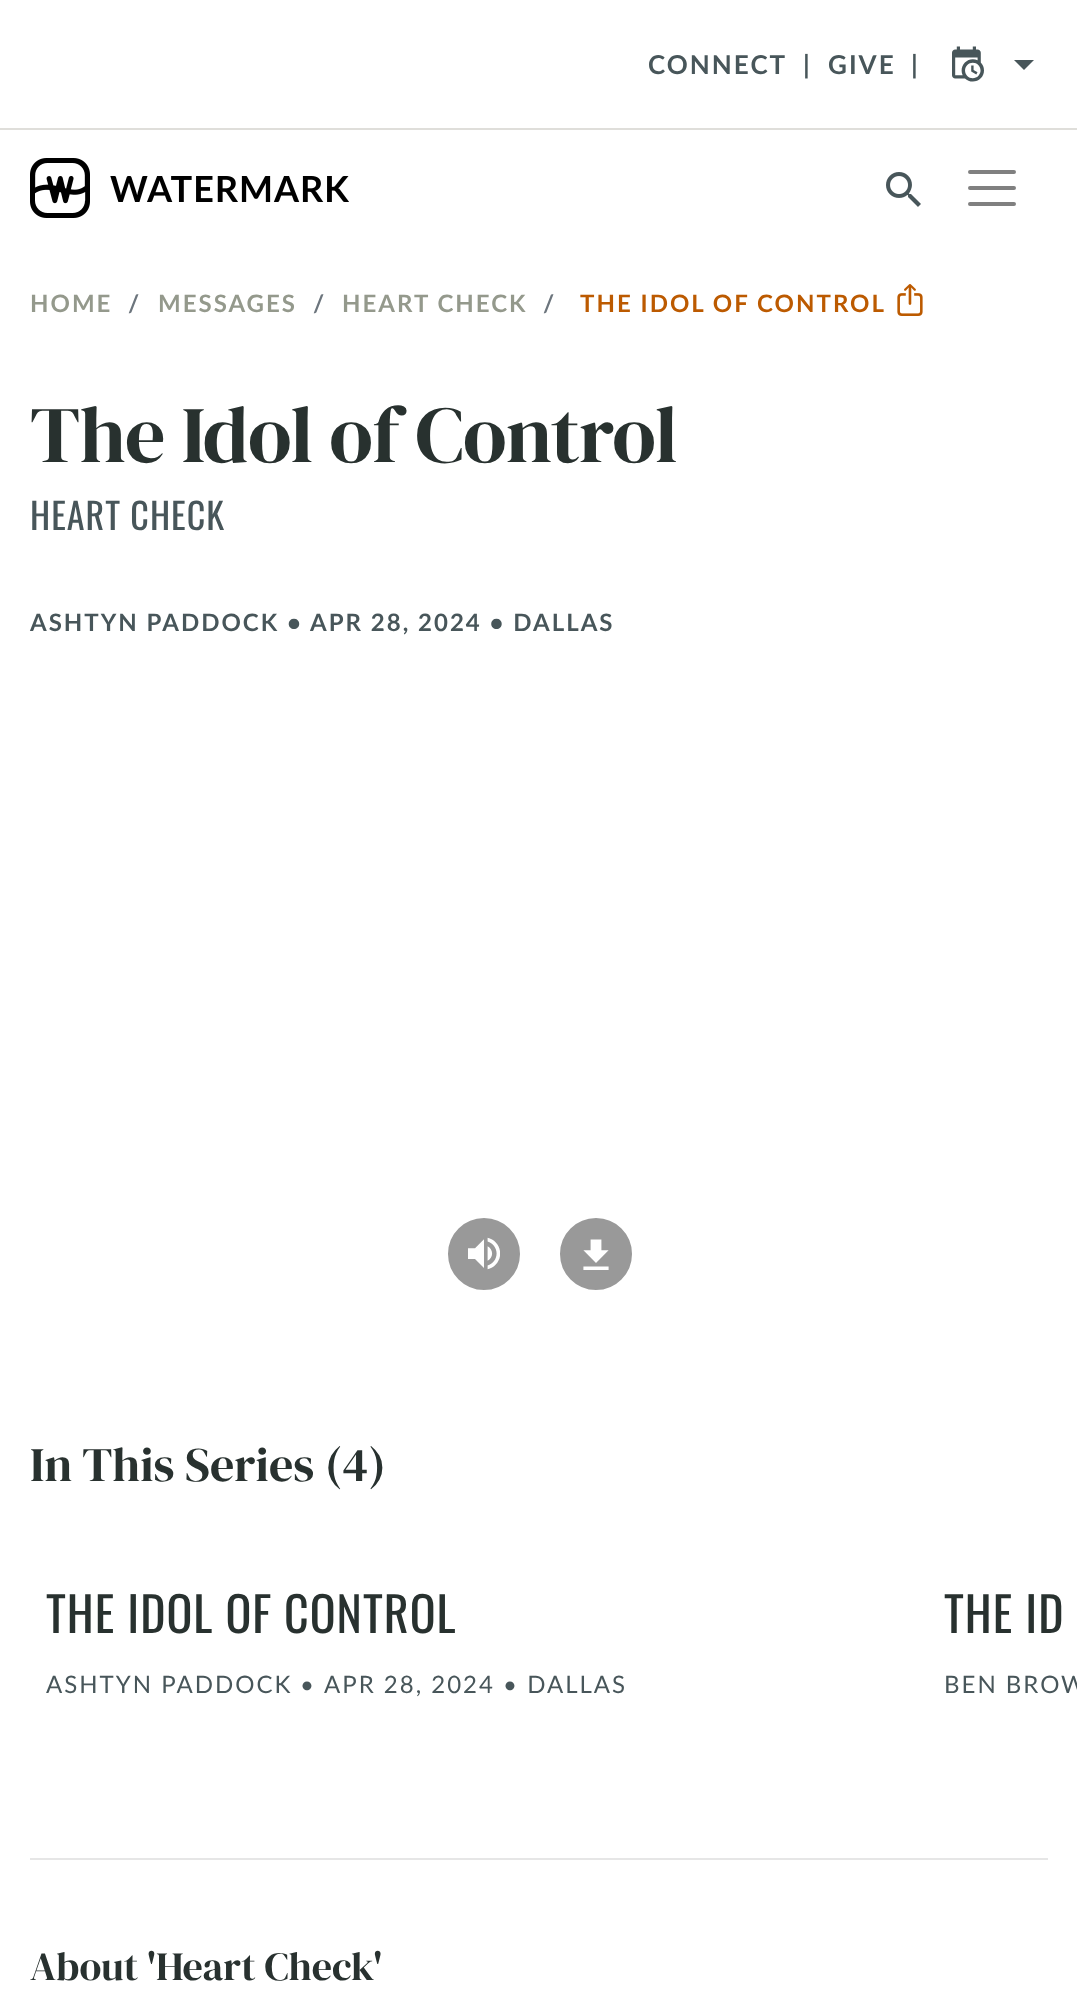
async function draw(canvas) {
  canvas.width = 1077;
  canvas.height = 1996;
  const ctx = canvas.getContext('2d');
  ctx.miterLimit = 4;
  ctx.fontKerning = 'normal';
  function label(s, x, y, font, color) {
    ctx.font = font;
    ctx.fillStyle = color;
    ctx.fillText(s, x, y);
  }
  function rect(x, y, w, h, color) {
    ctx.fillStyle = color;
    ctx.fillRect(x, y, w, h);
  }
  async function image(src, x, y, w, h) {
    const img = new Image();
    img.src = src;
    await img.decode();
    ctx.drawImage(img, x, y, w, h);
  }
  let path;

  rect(0, 0, 1077, 1996, '#fff');
  rect(0, 128, 1077, 2, '#dfdeda');
  ctx.letterSpacing = '2px';
  label('CONNECT', 648, 74, 'bold 26px Lato', '#48565a');
  label('|', 803, 74, 'bold 26px Lato', '#48565a');
  label('GIVE', 828, 74, 'bold 26px Lato', '#48565a');
  label('|', 911, 74, 'bold 26px Lato', '#48565a');
  await image('assets/img1.png', 952, 46, 32, 36);
  path = new Path2D('M1014 60H1034L1024 70Z');
  ctx.fill(path);
  await image('assets/img2.png', 30, 158, 60, 60);
  await image('assets/img3.png', 110, 176, 239, 26);
  await image('assets/img4.png', 886, 172, 35, 35);
  path = new Path2D('M970 172H1014M970 188H1014M970 204H1014');
  ctx.strokeStyle = '#808080';
  ctx.lineWidth = 4;
  ctx.lineCap = 'round';
  ctx.stroke(path);
  label('HOME', 30, 312, 'bold 24px Lato', '#94998c');
  label('/', 128, 312, 'bold 24px Lato', '#6c757d');
  label('MESSAGES', 158, 312, 'bold 24px Lato', '#94998c');
  label('/', 313, 312, 'bold 24px Lato', '#6c757d');
  label('HEART CHECK', 342, 312, 'bold 24px Lato', '#94998c');
  label('/', 543, 312, 'bold 24px Lato', '#6c757d');
  label('THE IDOL OF CONTROL', 580, 312, 'bold 24px Lato', '#bc5a00');
  await image('assets/img5.png', 897, 284, 26, 32);
  ctx.letterSpacing = '-0.75px';
  label('The Idol of Control', 30, 462, '80px DM Serif Display', '#28312f');
  ctx.letterSpacing = '1px';
  label('HEART CHECK', 30, 530, '36px Oswald', '#48565a');
  ctx.letterSpacing = '2px';
  label('ASHTYN PADDOCK', 30, 631, 'bold 24px Lato', '#48565a');
  label('•', 287, 631, 'bold 24px Lato', '#48565a');
  label('APR 28, 2024 • DALLAS', 310, 631, 'bold 24px Lato', '#48565a');
  ctx.fillStyle = '#999';
  ctx.beginPath();
  ctx.arc(484, 1254, 38, 0, 2 * Math.PI);
  ctx.fill();
  ctx.strokeStyle = '#fff';
  ctx.stroke();
  await image('assets/img6.png', 468, 1237, 32, 33);
  ctx.beginPath();
  ctx.arc(596, 1254, 38, 0, 2 * Math.PI);
  ctx.fill();
  ctx.stroke();
  await image('assets/img7.png', 583, 1239, 26, 31);
  ctx.letterSpacing = '0px';
  label('In This Series (4)', 30, 1481, '48px DM Serif Display', '#28312f');
  ctx.letterSpacing = '1px';
  label('THE IDOL OF CONTROL', 46, 1633, '48px Oswald', '#28312f');
  ctx.letterSpacing = '2px';
  label('ASHTYN PADDOCK', 46, 1693, '24px Lato', '#48565a');
  label('•', 300, 1693, '24px Lato', '#48565a');
  label('APR 28, 2024 • DALLAS', 324, 1693, '24px Lato', '#48565a');
  ctx.letterSpacing = '1px';
  label('THE ID', 944, 1633, '48px Oswald', '#28312f');
  ctx.letterSpacing = '2px';
  label('BEN BROW', 944, 1693, '24px Lato', '#48565a');
  rect(30, 1858, 1018, 2, '#e6e6e6');
  ctx.letterSpacing = '0px';
  label('About \'Heart Check\'', 30, 1980, '40px DM Serif Display', '#28312f');
}

draw(document.querySelector('canvas'));
